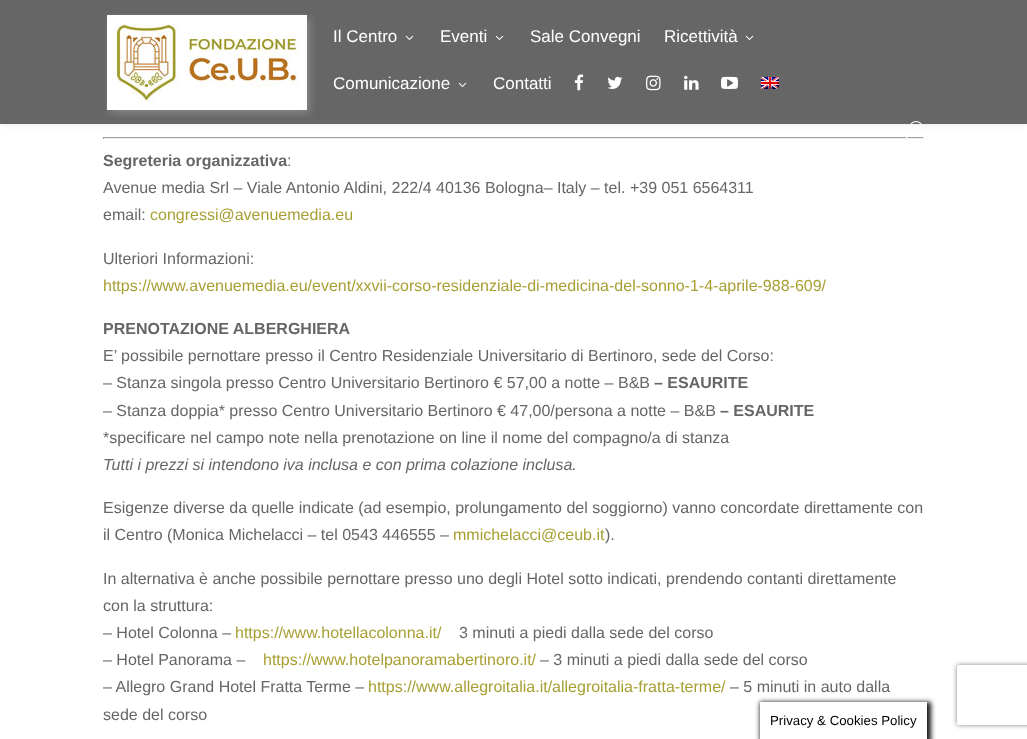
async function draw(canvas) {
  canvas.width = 1027;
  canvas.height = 739;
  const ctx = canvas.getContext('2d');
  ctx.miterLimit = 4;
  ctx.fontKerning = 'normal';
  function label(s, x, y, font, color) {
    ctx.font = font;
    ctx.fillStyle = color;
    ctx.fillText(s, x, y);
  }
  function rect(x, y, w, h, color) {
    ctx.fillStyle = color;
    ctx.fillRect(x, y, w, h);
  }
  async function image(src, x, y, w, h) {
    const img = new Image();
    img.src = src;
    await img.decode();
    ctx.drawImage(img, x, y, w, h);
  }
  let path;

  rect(0, 0, 1027, 739, '#fff');
  ctx.fillStyle = '#0000001a';
  ctx.filter = 'blur(3.5px)';
  ctx.beginPath();
  ctx.rect(0, 0, 1027, 124);
  ctx.fill();
  ctx.filter = 'none';
  rect(0, 0, 1027, 124, '#666');
  await image('assets/img1.png', 105, 13, 210, 105);
  label('Il Centro', 333, 42, '17px Liberation Sans', '#fff');
  await image('assets/img2.png', 405, 35, 9, 5);
  label('Eventi', 440, 42, '17px Liberation Sans', '#fff');
  await image('assets/img2.png', 495, 35, 9, 5);
  label('Sale Convegni', 530, 42, '17px Liberation Sans', '#fff');
  label('Ricettività', 664, 42, '17px Liberation Sans', '#fff');
  await image('assets/img2.png', 745, 35, 9, 5);
  label('Comunicazione', 333, 89, '17px Liberation Sans', '#fff');
  await image('assets/img2.png', 458, 82, 9, 5);
  label('Contatti', 493, 89, '17px Liberation Sans', '#fff');
  await image('assets/img3.png', 574, 74, 10, 17);
  await image('assets/img4.png', 607, 76, 16, 13);
  await image('assets/img5.png', 646, 75, 15, 16);
  await image('assets/img6.png', 684, 75, 15, 15);
  await image('assets/img7.png', 721, 76, 17, 13);
  await image('assets/img8.png', 761, 77, 18, 12);
  rect(103, 137, 821, 1, '#9f9f9f');
  await image('assets/img9.png', 906, 121, 17, 17);
  rect(923, 137, 1, 2, '#eee');
  rect(103, 138, 821, 1, '#eee');
  rect(103, 137, 1, 2, '#9f9f9f');
  label('Segreteria organizzativa', 103, 166, 'bold 16px Liberation Sans', '#666');
  label(':', 287, 166, '16px Liberation Sans', '#666');
  label('Avenue media Srl – Viale Antonio Aldini, 222/4 40136 Bologna– Italy – tel. +39 051 6564311', 103, 193, '16px Liberation Sans', '#666');
  label('email:', 103, 220, '16px Liberation Sans', '#666');
  label('congressi@avenuemedia.eu', 150, 220, '16px Liberation Sans', '#a89f33');
  label('Ulteriori Informazioni:', 103, 264, '16px Liberation Sans', '#666');
  label('https://www.avenuemedia.eu/event/xxvii-corso-residenziale-di-medicina-del-sonno-1-4-aprile-988-609/', 103, 291, '16px Liberation Sans', '#a89f33');
  label('PRENOTAZIONE ALBERGHIERA', 103, 334, 'bold 16px Liberation Sans', '#666');
  label('E’ possibile pernottare presso il Centro Residenziale Universitario di Bertinoro, sede del Corso:', 103, 361, '16px Liberation Sans', '#666');
  label('– Stanza singola presso Centro Universitario Bertinoro € 57,00 a notte – B&B', 103, 388, '16px Liberation Sans', '#666');
  label('– ESAURITE', 654, 388, 'bold 16px Liberation Sans', '#666');
  label('– Stanza doppia* presso Centro Universitario Bertinoro € 47,00/persona a notte – B&B', 103, 416, '16px Liberation Sans', '#666');
  label('– ESAURITE', 720, 416, 'bold 16px Liberation Sans', '#666');
  label('*specificare nel campo note nella prenotazione on line il nome del compagno/a di stanza', 103, 443, '16px Liberation Sans', '#666');
  label('Tutti i prezzi si intendono iva inclusa e con prima colazione inclusa.', 103, 470, 'italic 16px Liberation Sans', '#666');
  label('Esigenze diverse da quelle indicate (ad esempio, prolungamento del soggiorno) vanno concordate direttamente con', 103, 513, '16px Liberation Sans', '#666');
  label('il Centro (Monica Michelacci – tel 0543 446555 –', 103, 540, '16px Liberation Sans', '#666');
  label('mmichelacci@ceub.it', 453, 540, '16px Liberation Sans', '#a89f33');
  label(').', 605, 540, '16px Liberation Sans', '#666');
  label('In alternativa è anche possibile pernottare presso uno degli Hotel sotto indicati, prendendo contanti direttamente', 103, 584, '16px Liberation Sans', '#666');
  label('con la struttura:', 103, 611, '16px Liberation Sans', '#666');
  label('– Hotel Colonna –', 103, 638, '16px Liberation Sans', '#666');
  label('https://www.hotellacolonna.it/', 235, 638, '16px Liberation Sans', '#a89f33');
  label('3 minuti a piedi dalla sede del corso', 459, 638, '16px Liberation Sans', '#666');
  label('– Hotel Panorama –', 103, 665, '16px Liberation Sans', '#666');
  label('https://www.hotelpanoramabertinoro.it/', 263, 665, '16px Liberation Sans', '#a89f33');
  label('– 3 minuti a piedi dalla sede del corso', 540, 665, '16px Liberation Sans', '#666');
  label('– Allegro Grand Hotel Fratta Terme –', 103, 692, '16px Liberation Sans', '#666');
  label('https://www.allegroitalia.it/allegroitalia-fratta-terme/', 368, 692, '16px Liberation Sans', '#a89f33');
  label('– 5 minuti in auto dalla', 730, 692, '16px Liberation Sans', '#666');
  label('sede del corso', 103, 720, '16px Liberation Sans', '#666');
  ctx.save();
  path = new Path2D('M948 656H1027V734H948ZM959 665H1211C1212 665 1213 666 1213 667V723C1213 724 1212 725 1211 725H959C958 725 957 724 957 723V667C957 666 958 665 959 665Z');
  ctx.clip(path, 'evenodd');
  ctx.fillStyle = '#808080';
  ctx.filter = 'blur(2.5px)';
  ctx.beginPath();
  ctx.roundRect(957, 665, 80, 60, 2);
  ctx.fill();
  ctx.filter = 'none';
  ctx.restore();
  ctx.save();
  path = new Path2D('M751 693H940V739H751ZM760 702H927V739H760Z');
  ctx.clip(path, 'evenodd');
  ctx.fillStyle = '#161616';
  ctx.filter = 'blur(2.5px)';
  ctx.beginPath();
  ctx.rect(760, 702, 171, 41);
  ctx.fill();
  ctx.filter = 'none';
  ctx.restore();
  label('Privacy & Cookies Policy', 770, 725, '13.25px Liberation Sans', '#000');
}

draw(document.querySelector('canvas'));
